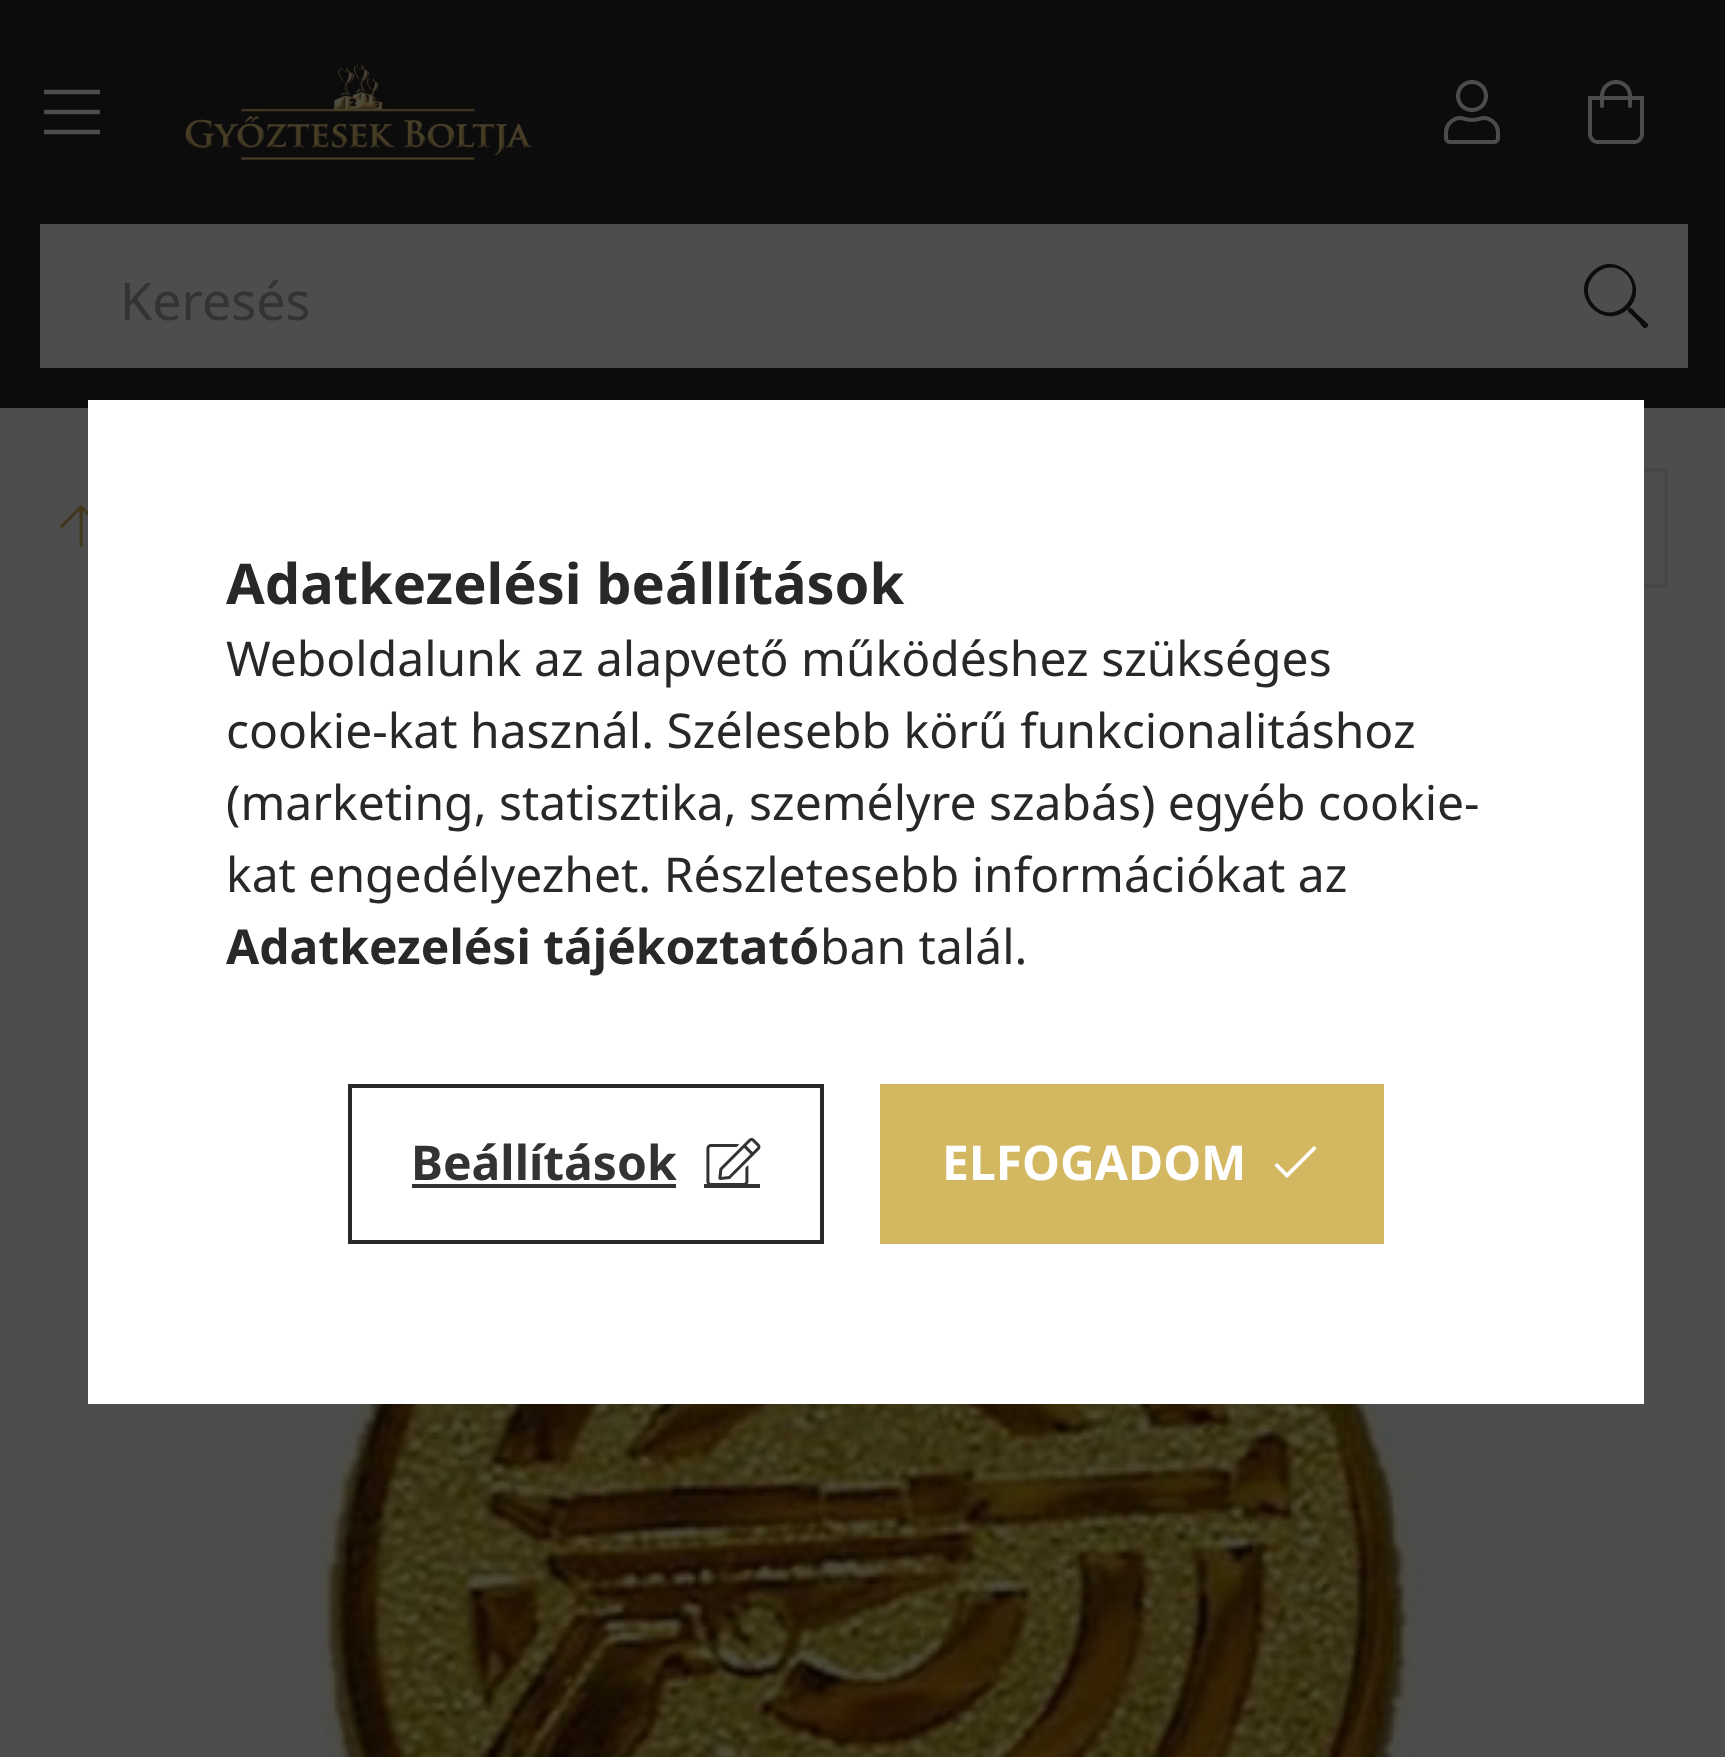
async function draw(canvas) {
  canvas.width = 1725;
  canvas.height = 1757;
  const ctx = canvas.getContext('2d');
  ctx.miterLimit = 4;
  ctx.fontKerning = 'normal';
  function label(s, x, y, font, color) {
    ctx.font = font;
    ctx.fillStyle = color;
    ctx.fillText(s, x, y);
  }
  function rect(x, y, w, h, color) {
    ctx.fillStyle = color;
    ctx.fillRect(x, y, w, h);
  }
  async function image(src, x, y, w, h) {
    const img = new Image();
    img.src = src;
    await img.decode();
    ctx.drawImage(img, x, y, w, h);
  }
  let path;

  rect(0, 0, 1725, 1757, '#4d4d4d');
  rect(0, 0, 1725, 408, '#0c0c0c');
  await image('assets/img1.png', 44, 89, 56, 46);
  await image('assets/img2.png', 185, 64, 347, 96);
  await image('assets/img3.png', 1444, 80, 56, 64);
  await image('assets/img4.png', 1588, 80, 56, 64);
  rect(40, 224, 1648, 144, '#4d4d4d');
  label('Keresés', 120, 320, '52px Noto Sans', '#333');
  ctx.fillStyle = '#0c0c0c';
  path = new Path2D('M1648 324V326L1646 328C1644 330 1640 323 1639 322L1631 314C1628 312 1628 312 1628 309C1603 332 1568 295 1592 272C1615 248 1652 283 1629 308C1633 308 1634 311 1637 314ZM1595 306C1615 326 1646 295 1626 274C1605 254 1574 285 1595 306Z');
  ctx.fill(path);
  await image('assets/img5.png', 60, 505, 28, 42);
  ctx.strokeStyle = '#464646';
  ctx.lineWidth = 4;
  ctx.strokeRect(1550, 470, 116, 116);
  await image('assets/img6.png', 295, 1404, 1147, 353);
  rect(88, 400, 1556, 1004, '#fff');
  label('Adatkezelési beállítások', 226, 604, 'bold 56px Noto Sans', '#282828');
  label('Weboldalunk az alapvető működéshez szükséges', 226, 676, '48px Noto Sans', '#282828');
  label('cookie-kat használ. Szélesebb körű funkcionalitáshoz', 226, 748, '48px Noto Sans', '#282828');
  label('(marketing, statisztika, személyre szabás) egyéb cookie-', 226, 820, '48px Noto Sans', '#282828');
  label('kat engedélyezhet. Részletesebb információkat az', 226, 892, '48px Noto Sans', '#282828');
  label('Adatkezelési tájékoztató', 226, 964, 'bold 48px Noto Sans', '#282828');
  label('ban talál.', 820, 964, '48px Noto Sans', '#282828');
  ctx.strokeStyle = '#282828';
  ctx.strokeRect(350, 1086, 472, 156);
  label('Beállítások', 411, 1180, 'bold 48px Noto Sans', '#333');
  rect(412, 1184, 264, 4, '#333');
  await image('assets/img7.png', 706, 1138, 55, 46);
  rect(704, 1184, 56, 4, '#333');
  rect(880, 1084, 504, 160, '#d4b761');
  label('ELFOGADOM', 942, 1180, 'bold 48px Noto Sans', '#fff');
  await image('assets/img8.png', 1274, 1146, 43, 32);
}

draw(document.querySelector('canvas'));
